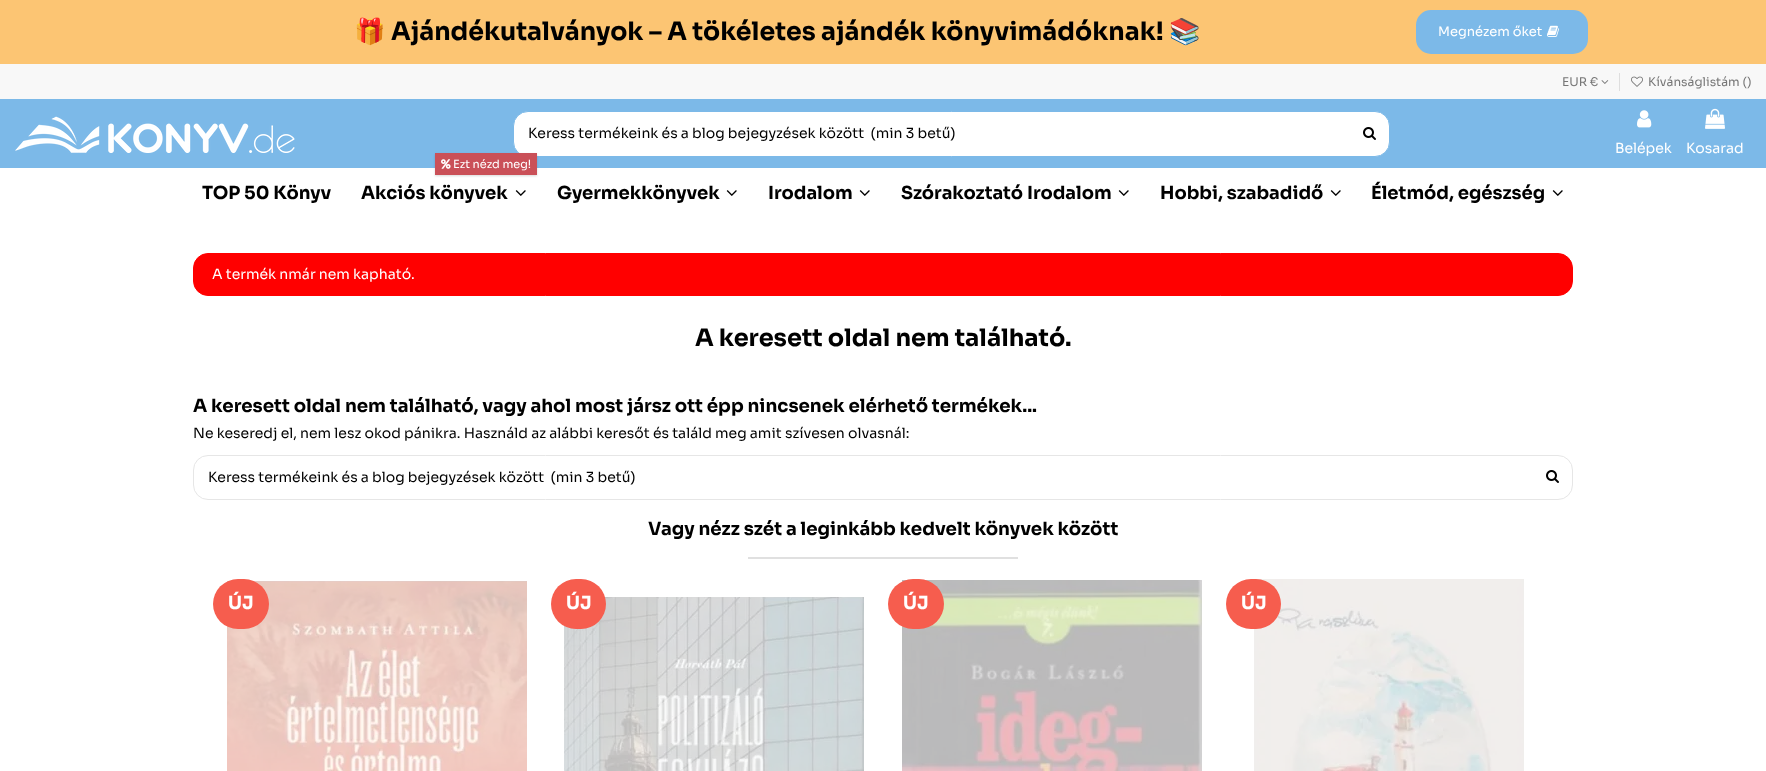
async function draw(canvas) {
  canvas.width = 1766;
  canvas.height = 771;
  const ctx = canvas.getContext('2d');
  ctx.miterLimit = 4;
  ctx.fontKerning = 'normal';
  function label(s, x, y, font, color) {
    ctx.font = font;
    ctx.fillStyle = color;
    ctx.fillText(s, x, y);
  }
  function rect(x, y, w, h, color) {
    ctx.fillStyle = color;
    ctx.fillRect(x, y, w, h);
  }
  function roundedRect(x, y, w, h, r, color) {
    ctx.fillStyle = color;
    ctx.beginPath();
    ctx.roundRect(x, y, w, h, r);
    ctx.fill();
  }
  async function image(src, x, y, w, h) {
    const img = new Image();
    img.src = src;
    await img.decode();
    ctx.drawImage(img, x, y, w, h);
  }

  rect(0, 0, 1766, 771, '#fff');
  rect(0, 99, 1766, 69, '#7cb9e8');
  rect(0, 0, 1766, 64, '#fcc573');
  label('🎁', 354, 40, 'bold 25.2px Noto Color Emoji', '#000');
  label('Ajándékutalványok – A tökéletes ajándék könyvimádóknak!', 391, 40, 'bold 25.2px Sora', '#000');
  label('📚', 1169, 40, 'bold 25.2px Noto Color Emoji', '#000');
  ctx.fillStyle = '#7cb9e8';
  ctx.beginPath();
  ctx.roundRect(1417, 11, 170, 42, 14);
  ctx.fill();
  ctx.strokeStyle = '#7cb9e8';
  ctx.lineWidth = 2;
  ctx.stroke();
  label('Megnézem őket', 1438, 36, '13px Sora', '#fff');
  await image('assets/img1.png', 1547, 25, 12, 12);
  rect(0, 64, 1766, 35, '#f8f8f8');
  label('EUR €', 1562, 86, '12px Sora', '#777');
  await image('assets/img2.png', 1601, 80, 8, 4);
  rect(1619, 73, 1, 18, '#dedede');
  await image('assets/img3.png', 1631, 76, 12, 11);
  label('Kívánságlistám ()', 1648, 86, '12px Sora', '#777');
  await image('assets/img4.png', 15, 116, 280, 37);
  ctx.fillStyle = '#fff';
  ctx.beginPath();
  ctx.roundRect(513.5, 111.5, 876, 45, 14.5);
  ctx.fill();
  ctx.lineWidth = 1;
  ctx.stroke();
  label('Keress termékeink és a blog bejegyzések között  (min 3 betű)', 528, 138, '14px Sora', '#000');
  await image('assets/img5.png', 1363, 127, 13, 13);
  await image('assets/img6.png', 1637, 110, 15, 18);
  label('Belépek', 1615, 153, '14px Sora', '#fff');
  await image('assets/img7.png', 1705, 108, 20, 21);
  label('Kosarad', 1686, 153, '14px Sora', '#fff');
  label('TOP 50 Könyv', 202, 199, 'bold 18px Sora', '#000');
  ctx.fillStyle = '#00000026';
  ctx.filter = 'blur(1px)';
  ctx.beginPath();
  ctx.rect(435, 154, 102, 22);
  ctx.fill();
  ctx.filter = 'none';
  rect(435, 153, 102, 22, '#ca5058');
  await image('assets/img8.png', 441, 159, 10, 10);
  label('Ezt nézd meg!', 453, 168, '11.25px Sora', '#fff');
  label('Akciós könyvek', 361, 199, 'bold 18px Sora', '#000');
  await image('assets/img9.png', 515, 190, 11, 6);
  label('Gyermekkönyvek', 557, 199, 'bold 18px Sora', '#000');
  await image('assets/img9.png', 726, 190, 11, 6);
  label('Irodalom', 768, 199, 'bold 18px Sora', '#000');
  await image('assets/img9.png', 859, 190, 11, 6);
  label('Szórakoztató Irodalom', 901, 199, 'bold 18px Sora', '#000');
  await image('assets/img9.png', 1118, 190, 11, 6);
  label('Hobbi, szabadidő', 1160, 199, 'bold 18px Sora', '#000');
  await image('assets/img9.png', 1330, 190, 11, 6);
  label('Életmód, egészség', 1371, 199, 'bold 18px Sora', '#000');
  await image('assets/img9.png', 1552, 190, 11, 6);
  ctx.fillStyle = '#f00';
  ctx.beginPath();
  ctx.roundRect(193.5, 253.5, 1379, 42, 14.5);
  ctx.fill();
  ctx.strokeStyle = '#f00';
  ctx.stroke();
  label('A termék nmár nem kapható.', 212, 279, '14px Sora', '#fff');
  label('A keresett oldal nem található.', 695, 346, 'bold 24px Sora', '#000');
  label('A keresett oldal nem található, vagy ahol most jársz ott épp nincsenek elérhető termékek...', 193, 412, 'bold 18.2px Sora', '#000');
  label('Ne keseredj el, nem lesz okod pánikra. Használd az alábbi keresőt és találd meg amit szívesen olvasnál:', 193, 438, '14px Sora', '#000');
  ctx.beginPath();
  ctx.roundRect(193.5, 455.5, 1379, 44, 14.5);
  ctx.strokeStyle = '#e6e6e6';
  ctx.stroke();
  label('Keress termékeink és a blog bejegyzések között  (min 3 betű)', 208, 482, '14px Sora', '#000');
  await image('assets/img5.png', 1546, 470, 13, 13);
  label('Vagy nézz szét a leginkább kedvelt könyvek között', 648, 535, 'bold 18.2px Sora', '#000');
  rect(748, 557, 270, 2, '#e0e0e0');
  await image('assets/img10.png', 227, 581, 300, 190);
  roundedRect(213, 579, 56, 50, 25, '#f65d4e');
  label('ÚJ', 228, 609, 'bold 18px Sora', '#fff');
  await image('assets/img11.png', 564, 597, 300, 174);
  roundedRect(551, 579, 55, 50, 25, '#f65d4e');
  label('ÚJ', 566, 609, 'bold 18px Sora', '#fff');
  await image('assets/img12.png', 902, 580, 300, 191);
  roundedRect(888, 579, 56, 50, 25, '#f65d4e');
  label('ÚJ', 903, 609, 'bold 18px Sora', '#fff');
  await image('assets/img13.png', 1254, 579, 270, 192);
  roundedRect(1226, 579, 55, 50, 25, '#f65d4e');
  label('ÚJ', 1241, 609, 'bold 18px Sora', '#fff');
}

draw(document.querySelector('canvas'));
